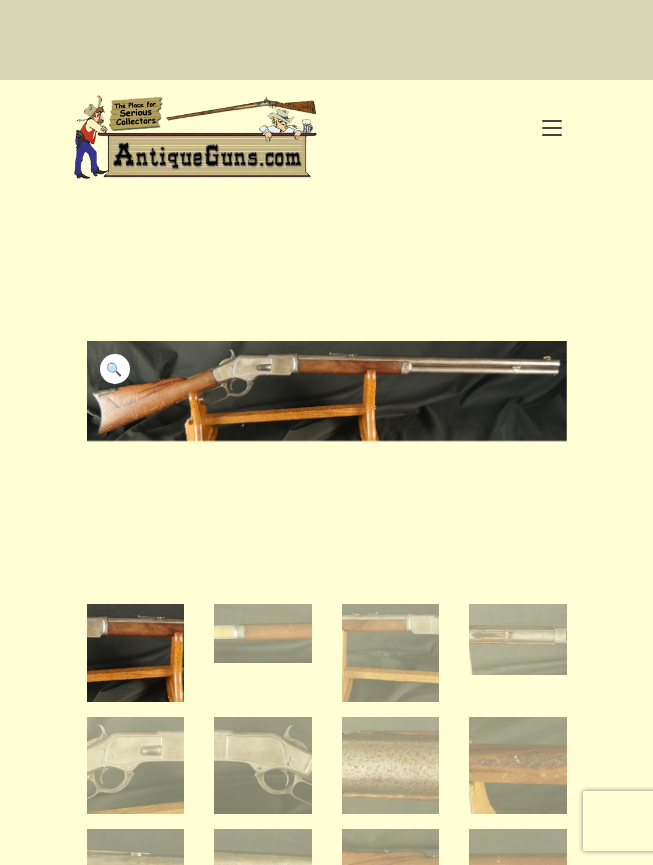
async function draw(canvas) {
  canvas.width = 653;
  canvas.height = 865;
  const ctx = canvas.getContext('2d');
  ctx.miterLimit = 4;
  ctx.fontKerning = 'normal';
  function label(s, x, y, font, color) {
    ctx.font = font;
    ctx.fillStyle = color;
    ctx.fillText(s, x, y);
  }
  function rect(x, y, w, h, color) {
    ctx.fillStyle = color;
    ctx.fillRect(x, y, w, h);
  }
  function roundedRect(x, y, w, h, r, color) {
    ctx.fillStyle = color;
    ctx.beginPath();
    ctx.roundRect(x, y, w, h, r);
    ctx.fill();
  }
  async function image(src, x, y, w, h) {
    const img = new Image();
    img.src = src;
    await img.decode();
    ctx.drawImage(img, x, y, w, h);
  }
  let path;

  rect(0, 0, 653, 865, '#fffed4');
  rect(0, 0, 653, 80, '#d9d6b3');
  await image('assets/img1.png', 74, 95, 243, 84);
  roundedRect(542, 120, 20, 2, 1, '#404040');
  roundedRect(542, 127, 20, 2, 1, '#404040');
  roundedRect(542, 134, 20, 2, 1, '#404040');
  await image('assets/img2.png', 87, 341, 480, 101);
  ctx.fillStyle = '#fff';
  ctx.beginPath();
  ctx.arc(115, 369, 15, 0, 2 * Math.PI);
  ctx.fill();
  label('🔍', 106, 374, '13px Noto Color Emoji', '#434343');
  await image('assets/img3.png', 87, 604, 97, 98);
  await image('assets/img4.png', 214, 604, 98, 59);
  await image('assets/img5.png', 342, 604, 97, 98);
  await image('assets/img6.png', 469, 604, 98, 71);
  await image('assets/img7.png', 87, 717, 97, 97);
  await image('assets/img8.png', 214, 717, 98, 97);
  await image('assets/img9.png', 342, 717, 97, 97);
  await image('assets/img10.png', 469, 717, 98, 97);
  await image('assets/img11.png', 87, 829, 97, 36);
  await image('assets/img12.png', 214, 829, 98, 36);
  await image('assets/img13.png', 342, 829, 97, 36);
  await image('assets/img14.png', 469, 829, 98, 36);
  ctx.save();
  path = new Path2D('M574 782H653V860H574ZM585 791H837C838 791 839 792 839 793V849C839 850 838 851 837 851H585C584 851 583 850 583 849V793C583 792 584 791 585 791Z');
  ctx.clip(path, 'evenodd');
  ctx.fillStyle = '#808080';
  ctx.filter = 'blur(2.5px)';
  ctx.beginPath();
  ctx.roundRect(583, 791, 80, 60, 2);
  ctx.fill();
  ctx.filter = 'none';
  ctx.restore();
}

draw(document.querySelector('canvas'));
